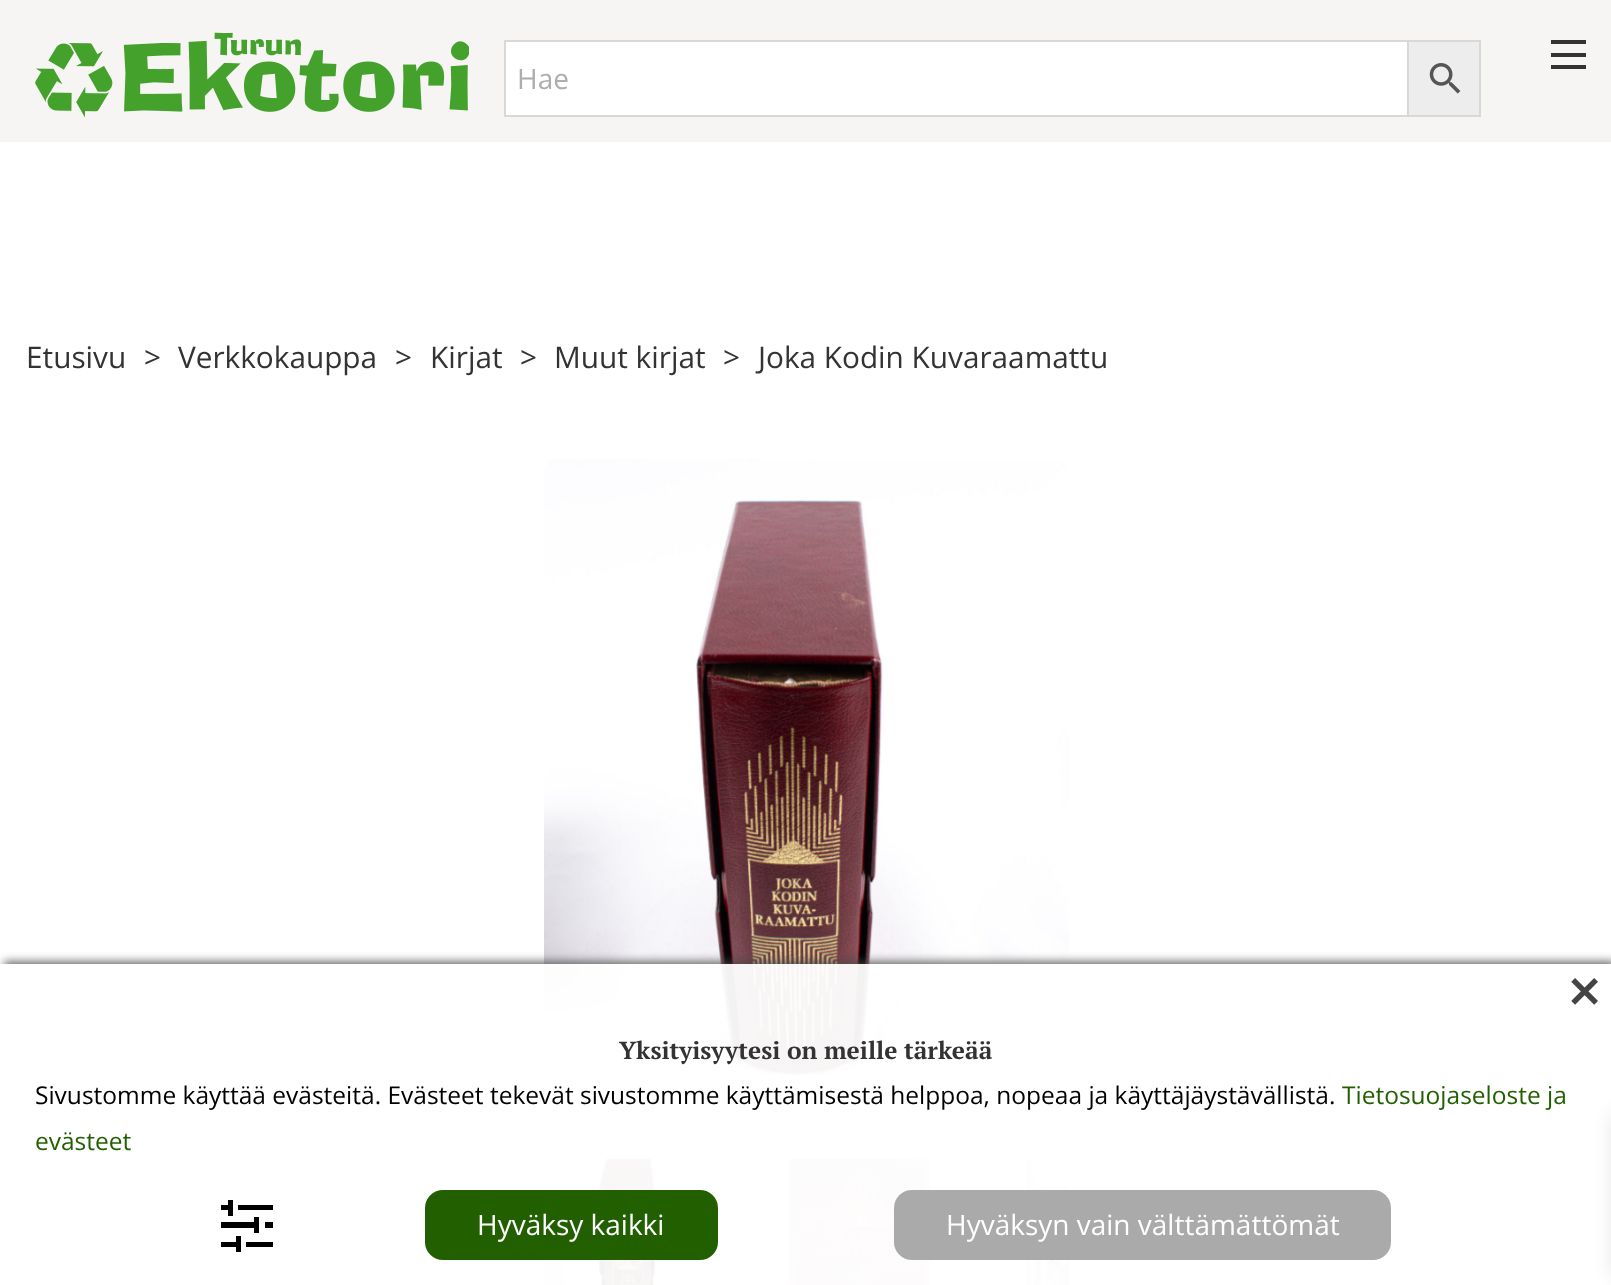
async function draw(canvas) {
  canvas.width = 1611;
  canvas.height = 1285;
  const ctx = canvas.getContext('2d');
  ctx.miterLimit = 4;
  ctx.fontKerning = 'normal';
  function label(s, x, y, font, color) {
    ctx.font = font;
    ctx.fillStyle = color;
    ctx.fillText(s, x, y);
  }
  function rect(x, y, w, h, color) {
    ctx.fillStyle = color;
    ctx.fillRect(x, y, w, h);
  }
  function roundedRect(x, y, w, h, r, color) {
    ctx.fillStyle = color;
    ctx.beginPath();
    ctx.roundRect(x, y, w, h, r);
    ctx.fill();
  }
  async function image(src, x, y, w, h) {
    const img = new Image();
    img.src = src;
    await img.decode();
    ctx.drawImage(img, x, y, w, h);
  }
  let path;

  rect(0, 0, 1611, 1285, '#fff');
  rect(0, 0, 1611, 142, '#f6f5f4');
  await image('assets/img1.png', 35, 32, 434, 86);
  rect(1551, 40, 35, 4, '#333');
  rect(1551, 53, 35, 4, '#333');
  rect(1551, 65, 35, 4, '#333');
  ctx.fillStyle = '#ededed';
  ctx.beginPath();
  ctx.rect(1408, 41, 72, 75);
  ctx.fill();
  ctx.strokeStyle = '#d8d8d8';
  ctx.lineWidth = 2;
  ctx.stroke();
  ctx.fillStyle = '#fff';
  ctx.beginPath();
  ctx.rect(505, 41, 903, 75);
  ctx.fill();
  ctx.stroke();
  label('Hae', 517, 89, '28px Open Sans', '#adadad');
  await image('assets/img2.png', 1429, 63, 32, 31);
  label('Etusivu', 26, 368, '29.75px Open Sans', '#333');
  label('>', 144, 368, '29.75px Open Sans', '#333');
  label('Verkkokauppa', 178, 368, '29.75px Open Sans', '#333');
  label('>', 395, 368, '29.75px Open Sans', '#333');
  label('Kirjat', 430, 368, '29.75px Open Sans', '#333');
  label('>', 520, 368, '29.75px Open Sans', '#333');
  label('Muut kirjat', 554, 368, '29.75px Open Sans', '#333');
  label('>', 723, 368, '29.75px Open Sans', '#333');
  label('Joka Kodin Kuvaraamattu', 758, 368, '29.75px Open Sans', '#333');
  await image('assets/img3.png', 544, 459, 525, 644);
  await image('assets/img4.png', 544, 1159, 124, 126);
  await image('assets/img5.png', 779, 1159, 152, 126);
  await image('assets/img6.png', 999, 1159, 70, 126);
  path = new Path2D('M1066.5 1246.5L1051.5 1261.5L1050 1260L1062.5 1247.5H1036.5V1245.5H1062.5L1050 1232.5L1051.5 1231.5Z');
  ctx.fill(path);
  ctx.save();
  path = new Path2D('M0 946H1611V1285H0ZM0 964H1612V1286H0Z');
  ctx.clip(path, 'evenodd');
  ctx.fillStyle = '#444444bf';
  ctx.filter = 'blur(4.5px)';
  ctx.beginPath();
  ctx.rect(4, 961, 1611, 322);
  ctx.fill();
  ctx.filter = 'none';
  ctx.restore();
  rect(0, 964, 1611, 321, '#fffffff2');
  await image('assets/img7.png', 1571, 978, 27, 27);
  label('Yksityisyytesi on meille tärkeää', 619, 1059, 'bold 24.5px PT Serif', '#333');
  label('Sivustomme käyttää evästeitä. Evästeet tekevät sivustomme käyttämisestä helppoa, nopeaa ja käyttäjäystävällistä.', 35, 1104, '24.5px Open Sans', '#000');
  label('Tietosuojaseloste ja', 1342, 1104, '24.5px Open Sans', '#215f00');
  label('evästeet', 35, 1150, '24.5px Open Sans', '#215f00');
  rect(238, 1205, 35, 5, '#000');
  rect(221, 1205, 12, 5, '#000');
  rect(228, 1200, 5, 16, '#000');
  rect(265, 1222, 8, 6, '#000');
  rect(221, 1222, 34, 6, '#000');
  rect(254, 1217, 5, 16, '#000');
  rect(246, 1242, 27, 5, '#000');
  rect(221, 1242, 16, 5, '#000');
  rect(236, 1236, 5, 16, '#000');
  roundedRect(425, 1190, 293, 70, 18, '#215f00');
  label('Hyväksy kaikki', 477, 1235, '28px Open Sans', '#fff');
  roundedRect(894, 1190, 497, 70, 18, '#aaa');
  label('Hyväksyn vain välttämättömät', 946, 1235, '28px Open Sans', '#fff');
  ctx.fillStyle = '#0000001a';
  ctx.filter = 'blur(9px)';
  ctx.beginPath();
  ctx.rect(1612, 1113, 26, 165);
  ctx.fill();
  ctx.filter = 'none';
}

draw(document.querySelector('canvas'));
